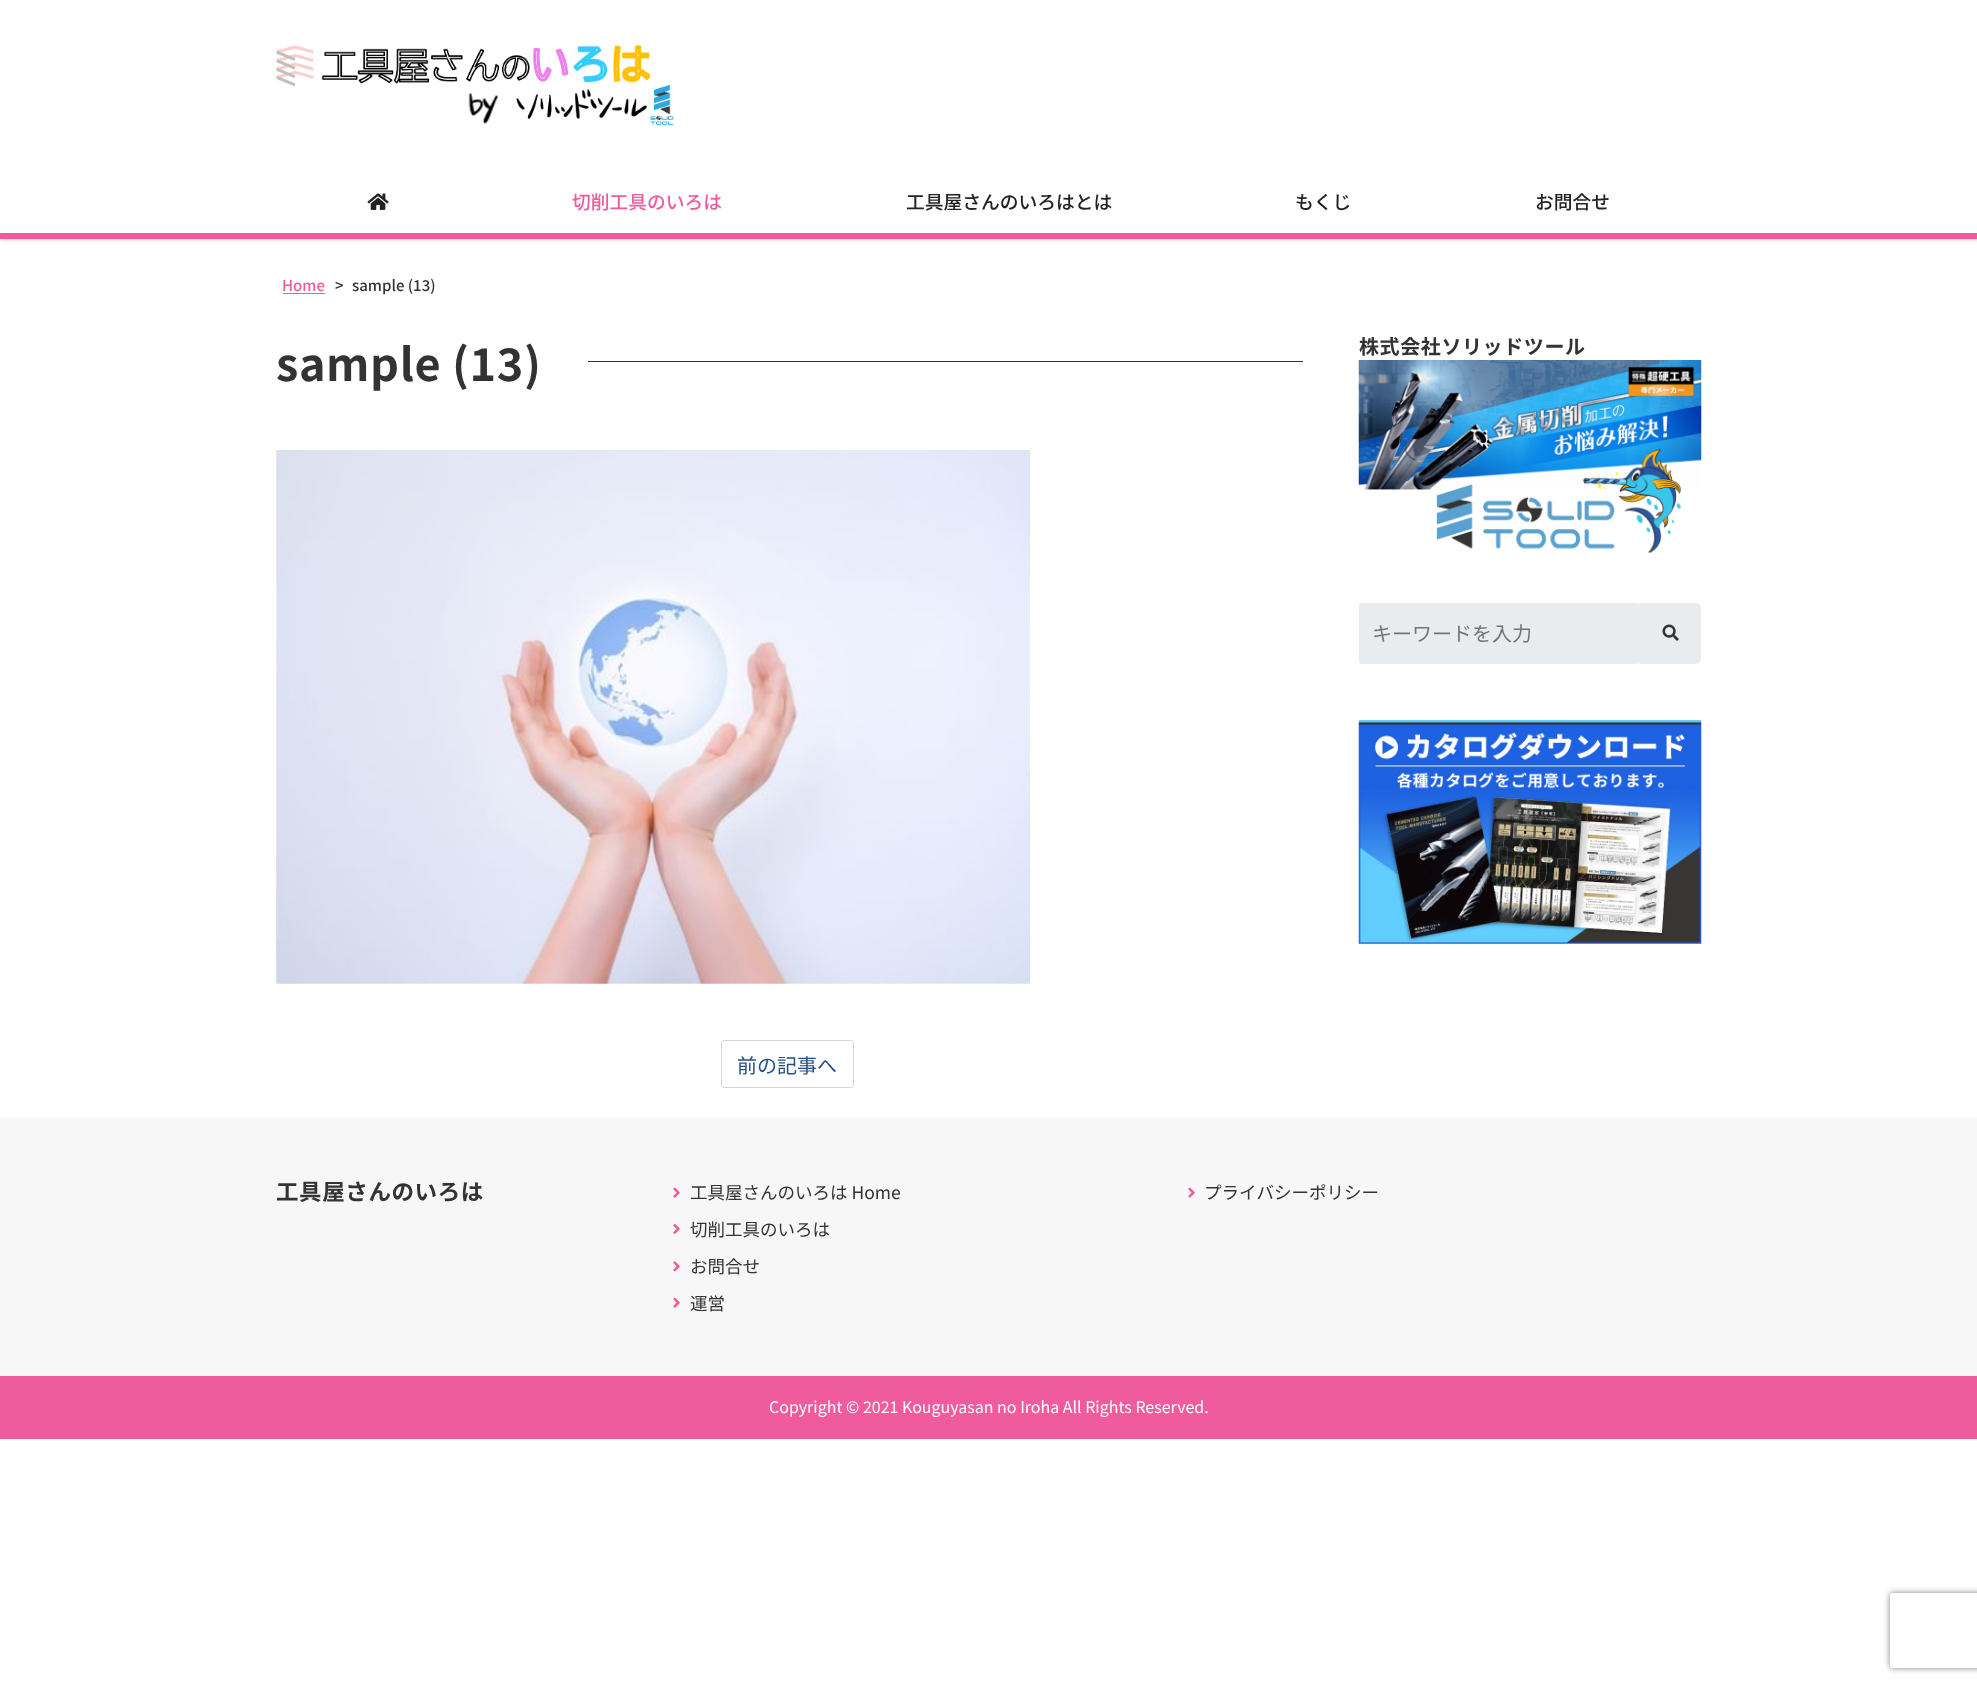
async function draw(canvas) {
  canvas.width = 1977;
  canvas.height = 1684;
  const ctx = canvas.getContext('2d');
  ctx.miterLimit = 4;
  ctx.fontKerning = 'normal';
  function label(s, x, y, font, color) {
    ctx.font = font;
    ctx.fillStyle = color;
    ctx.fillText(s, x, y);
  }
  function rect(x, y, w, h, color) {
    ctx.fillStyle = color;
    ctx.fillRect(x, y, w, h);
  }
  function roundedRect(x, y, w, h, r, color) {
    ctx.fillStyle = color;
    ctx.beginPath();
    ctx.roundRect(x, y, w, h, r);
    ctx.fill();
  }
  async function image(src, x, y, w, h) {
    const img = new Image();
    img.src = src;
    await img.decode();
    ctx.drawImage(img, x, y, w, h);
  }
  let path;

  rect(0, 0, 1977, 1684, '#fff');
  ctx.fillStyle = '#00000033';
  ctx.filter = 'blur(2px)';
  ctx.beginPath();
  ctx.rect(0, 1, 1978, 239);
  ctx.fill();
  ctx.filter = 'none';
  rect(0, 0, 1977, 233, '#fff');
  await image('assets/img1.png', 276, 45, 398, 81);
  rect(0, 233, 1977, 6, '#ef5b9c');
  await image('assets/img2.png', 367, 193, 22, 17);
  label('切削工具のいろは', 572, 209, '500 18.75px Noto Sans JP', '#ef5b9c');
  label('工具屋さんのいろはとは', 906, 209, '500 18.75px Noto Sans JP', '#222');
  label('もくじ', 1295, 209, '500 18.75px Noto Sans JP', '#222');
  label('お問合せ', 1535, 209, '500 18.75px Noto Sans JP', '#222');
  label('Home', 282, 291, '500 15px Noto Sans JP', '#ef5b9c');
  rect(283, 293, 42, 1, '#ef5b9c');
  label('>', 335, 291, '500 15px Noto Sans JP', '#333');
  label('sample (13)', 352, 291, '500 15px Noto Sans JP', '#333');
  ctx.letterSpacing = '0.6px';
  label('sample (13)', 276, 381, 'bold 45px Noto Sans JP', '#333');
  rect(588, 361, 715, 1, '#333');
  await image('assets/img3.png', 276, 450, 754, 534);
  ctx.beginPath();
  ctx.roundRect(721.5, 1040.5, 132, 47, 2.5);
  ctx.strokeStyle = '#d6d6d6';
  ctx.stroke();
  ctx.letterSpacing = '0px';
  label('前の記事へ', 737, 1073, '20px Noto Sans JP', '#235187');
  ctx.letterSpacing = '0.6px';
  label('株式会社ソリッドツール', 1359, 354, 'bold 20px Noto Sans JP', '#333');
  await image('assets/img4.png', 1358, 360, 344, 193);
  roundedRect(1359, 603, 280, 61, 3, '#e9ecef');
  ctx.letterSpacing = '0px';
  label('キーワードを入力', 1372, 641, '20px Noto Sans JP', '#757575');
  ctx.fillStyle = '#e9ecef';
  ctx.beginPath();
  ctx.roundRect(1639, 603, 62, 61, [0, 5, 5, 0]);
  ctx.fill();
  await image('assets/img5.png', 1662, 624, 17, 17);
  await image('assets/img6.png', 1358, 720, 344, 224);
  rect(0, 1118, 1977, 258, '#f7f7f7');
  ctx.letterSpacing = '0.6px';
  label('工具屋さんのいろは', 276, 1200, 'bold 22.5px Noto Sans JP', '#333');
  await image('assets/img7.png', 673, 1187, 7, 11);
  ctx.letterSpacing = '0px';
  label('工具屋さんのいろは Home', 690, 1199, '17.5px Noto Sans JP', '#333');
  await image('assets/img8.png', 673, 1223, 7, 11);
  label('切削工具のいろは', 690, 1236, '17.5px Noto Sans JP', '#333');
  await image('assets/img9.png', 673, 1261, 7, 11);
  label('お問合せ', 690, 1273, '17.5px Noto Sans JP', '#333');
  await image('assets/img7.png', 673, 1297, 7, 11);
  label('運営', 690, 1310, '17.5px Noto Sans JP', '#333');
  await image('assets/img7.png', 1188, 1187, 7, 11);
  label('プライバシーポリシー', 1204, 1199, '17.5px Noto Sans JP', '#333');
  rect(0, 1376, 1977, 63, '#ef5b9c');
  label('Copyright © 2021 Kouguyasan no Iroha All Rights Reserved.', 769, 1413, '16px Noto Sans JP', '#fff');
  ctx.save();
  path = new Path2D('M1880 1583H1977V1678H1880ZM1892.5 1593H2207.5C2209 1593 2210 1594 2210 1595.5V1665.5C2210 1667 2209 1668 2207.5 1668H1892.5C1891 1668 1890 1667 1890 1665.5V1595.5C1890 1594 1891 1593 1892.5 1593Z');
  ctx.clip(path, 'evenodd');
  ctx.fillStyle = '#808080';
  ctx.filter = 'blur(3px)';
  ctx.beginPath();
  ctx.roundRect(1890, 1593, 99, 75, 2.5);
  ctx.fill();
  ctx.filter = 'none';
  ctx.restore();
}

draw(document.querySelector('canvas'));
